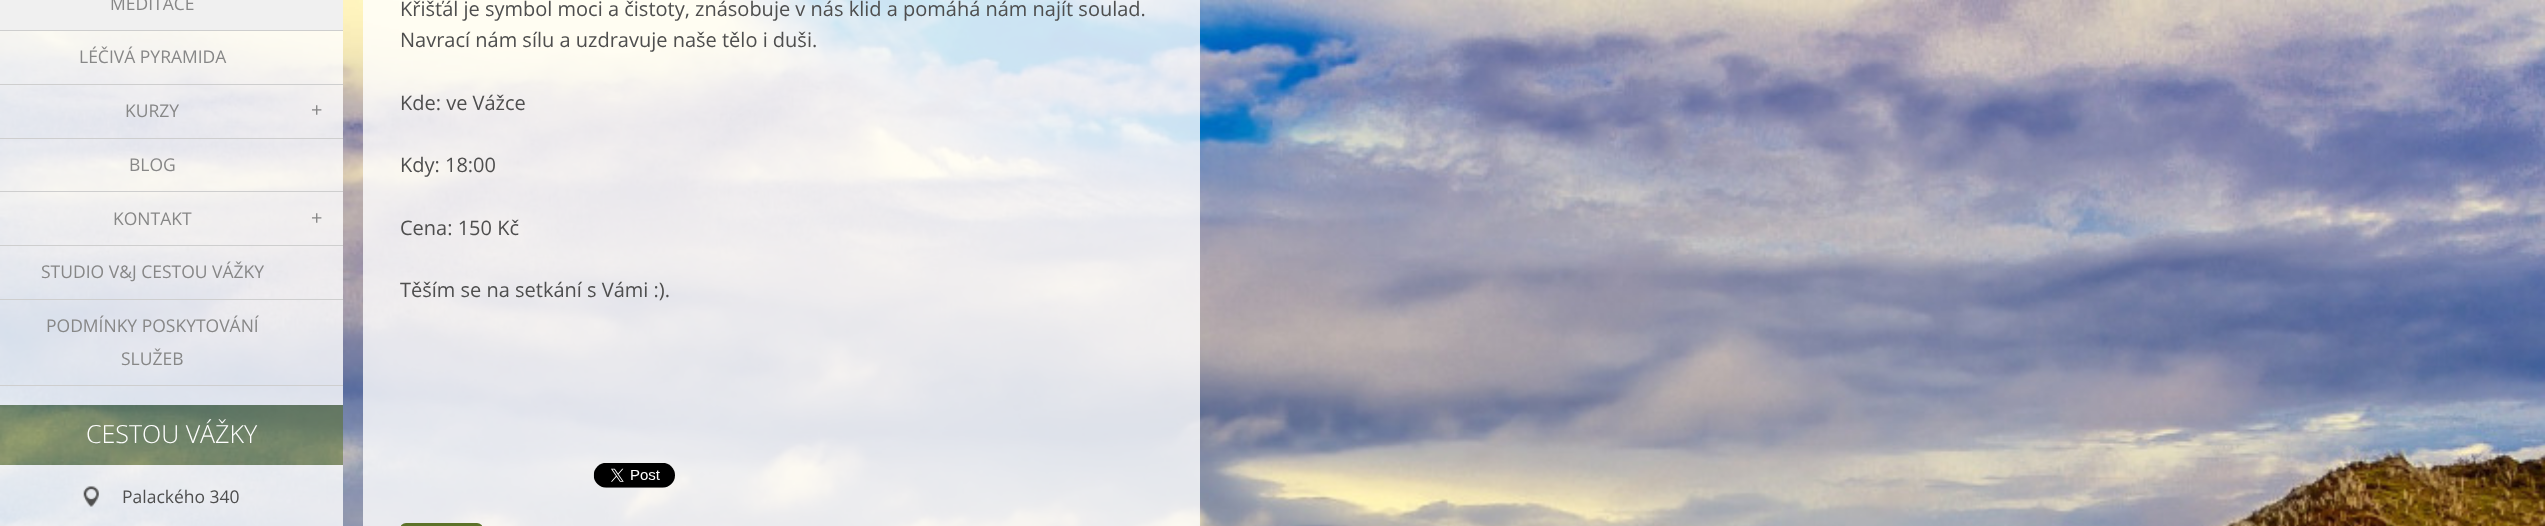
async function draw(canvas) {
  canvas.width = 2545;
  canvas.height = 526;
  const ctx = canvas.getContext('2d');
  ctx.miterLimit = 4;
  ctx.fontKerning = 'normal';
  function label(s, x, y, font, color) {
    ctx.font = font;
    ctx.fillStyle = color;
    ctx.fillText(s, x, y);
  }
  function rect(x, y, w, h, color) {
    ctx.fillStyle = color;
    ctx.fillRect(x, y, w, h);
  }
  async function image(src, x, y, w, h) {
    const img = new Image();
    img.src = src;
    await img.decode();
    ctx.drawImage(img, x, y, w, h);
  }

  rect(0, 0, 2545, 526, '#fff');
  await image('assets/img1.png', 0, 0, 2545, 526);
  rect(0, 31, 343, 354, '#ffffffcc');
  rect(0, 0, 343, 30, '#f0f0f0');
  rect(0, 30, 343, 1, '#cecece');
  label('MEDITACE', 110, 10, '17.5px Open Sans', '#878787');
  rect(0, 84, 343, 1, '#cecece');
  label('LÉČIVÁ PYRAMIDA', 79, 63, '17.5px Open Sans', '#878787');
  rect(0, 138, 343, 1, '#cecece');
  label('KURZY', 125, 117, '17.5px Open Sans', '#878787');
  label('+', 311, 117, '20px Open Sans', '#878787');
  rect(0, 191, 343, 1, '#cecece');
  label('BLOG', 129, 171, '17.5px Open Sans', '#878787');
  rect(0, 245, 343, 1, '#cecece');
  label('KONTAKT', 113, 225, '17.5px Open Sans', '#878787');
  label('+', 311, 225, '20px Open Sans', '#878787');
  rect(0, 299, 343, 1, '#cecece');
  label('STUDIO V&J CESTOU VÁŽKY', 41, 278, '17.5px Open Sans', '#878787');
  rect(0, 385, 343, 1, '#cecece');
  label('PODMÍNKY POSKYTOVÁNÍ', 46, 332, '17.5px Open Sans', '#878787');
  label('SLUŽEB', 121, 365, '17.5px Open Sans', '#878787');
  rect(0, 386, 343, 19, '#ffffffcc');
  rect(0, 405, 343, 60, '#566e1e80');
  label('CESTOU VÁŽKY', 86, 443, '300 25px Open Sans', '#fff');
  rect(0, 465, 343, 61, '#ffffffcc');
  await image('assets/img2.png', 83, 486, 16, 21);
  label('Palackého 340', 122, 503, '17.5px Open Sans', '#4e4e4e');
  rect(363, 0, 837, 463, '#ffffffcc');
  label('Křišťál je symbol moci a čistoty, znásobuje v nás klid a pomáhá nám najít soulad.', 400, 16, '20px Open Sans', '#4e4e4e');
  label('Navrací nám sílu a uzdravuje naše tělo i duši.', 400, 47, '20px Open Sans', '#4e4e4e');
  label('Kde: ve Vážce', 400, 110, '20px Open Sans', '#4e4e4e');
  label('Kdy: 18:00', 400, 172, '20px Open Sans', '#4e4e4e');
  label('Cena: 150 Kč', 400, 235, '20px Open Sans', '#4e4e4e');
  label('Těším se na setkání s Vámi :).', 400, 297, '20px Open Sans', '#4e4e4e');
  rect(363, 463, 837, 63, '#ffffffcc');
  await image('assets/img3.png', 593, 463, 82, 25);
  ctx.beginPath();
  ctx.roundRect(401.5, 524.5, 80, 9, 4.5);
  ctx.strokeStyle = '#5c7228';
  ctx.lineWidth = 3;
  ctx.stroke();
}

draw(document.querySelector('canvas'));
